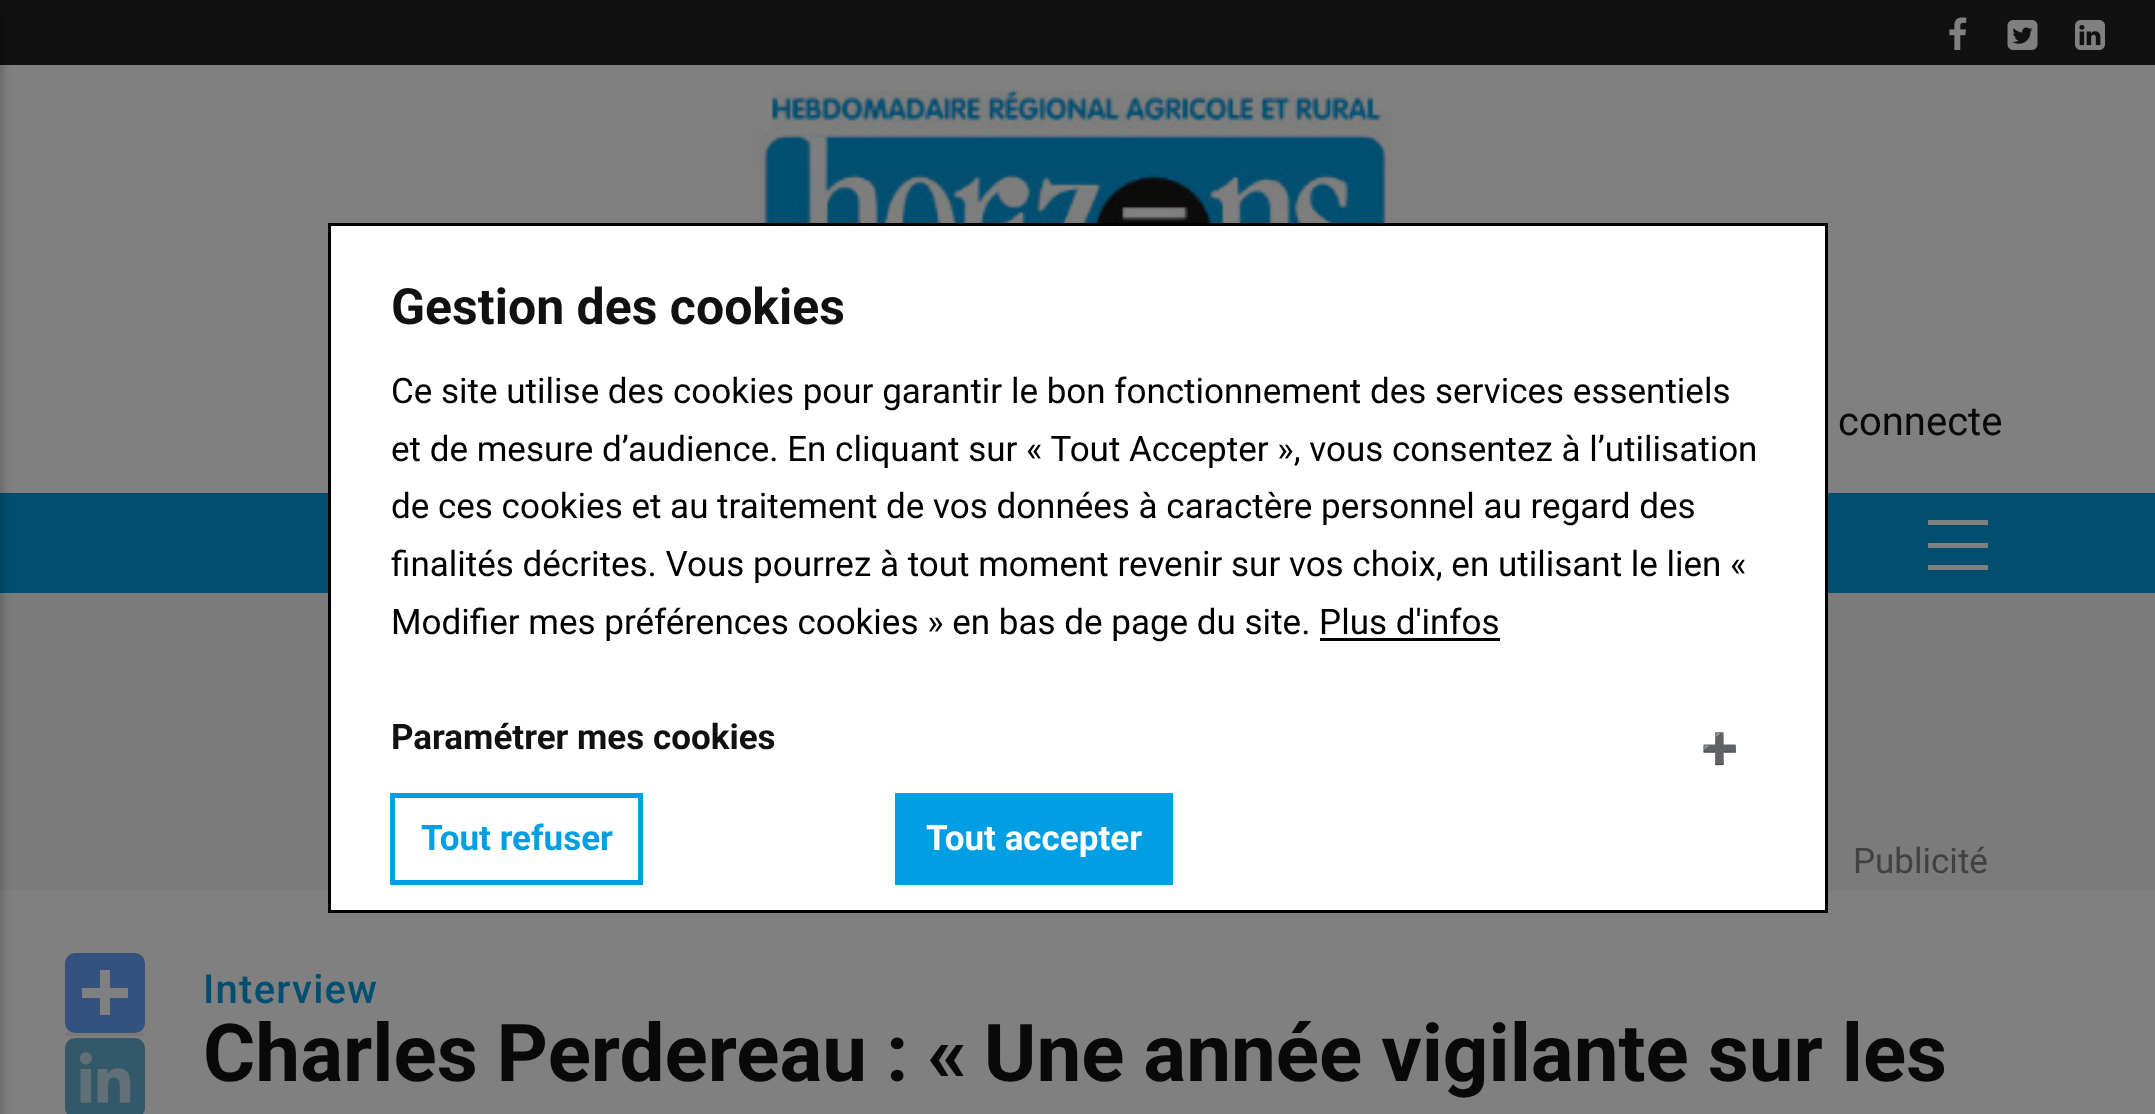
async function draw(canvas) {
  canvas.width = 2155;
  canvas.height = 1114;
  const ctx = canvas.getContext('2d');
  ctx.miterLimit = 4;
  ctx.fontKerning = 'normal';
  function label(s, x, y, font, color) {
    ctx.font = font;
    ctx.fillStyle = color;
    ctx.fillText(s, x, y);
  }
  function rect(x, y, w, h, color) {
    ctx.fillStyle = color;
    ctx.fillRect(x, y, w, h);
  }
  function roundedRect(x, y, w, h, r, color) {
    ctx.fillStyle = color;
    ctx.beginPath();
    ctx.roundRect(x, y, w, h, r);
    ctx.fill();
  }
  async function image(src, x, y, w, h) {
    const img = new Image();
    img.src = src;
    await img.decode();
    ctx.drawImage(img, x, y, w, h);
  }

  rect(0, 0, 2155, 1114, '#808080');
  rect(0, 493, 2155, 100, '#004f71');
  rect(0, 593, 2155, 297, '#7b7b7b');
  ctx.fillStyle = '#fff';
  ctx.beginPath();
  ctx.rect(329.5, 224.5, 1497, 687);
  ctx.fill();
  ctx.strokeStyle = '#000';
  ctx.lineWidth = 3;
  ctx.stroke();
  label('Gestion des cookies', 391, 324, 'bold 50px Roboto', '#111');
  label('Ce site utilise des cookies pour garantir le bon fonctionnement des services essentiels', 391, 403, '35px Roboto', '#000');
  label('et de mesure d’audience. En cliquant sur « Tout Accepter », vous consentez à l’utilisation', 391, 461, '35px Roboto', '#000');
  label('de ces cookies et au traitement de vos données à caractère personnel au regard des', 391, 518, '35px Roboto', '#000');
  label('finalités décrites. Vous pourrez à tout moment revenir sur vos choix, en utilisant le lien «', 391, 576, '35px Roboto', '#000');
  label('Modifier mes préférences cookies » en bas de page du site. Plus d\'infos', 391, 634, '35px Roboto', '#000');
  rect(1320, 638, 180, 3, '#000');
  label('Paramétrer mes cookies', 391, 749, 'bold 35px Roboto', '#111');
  label('➕', 1701, 759, 'bold 30px Noto Color Emoji', '#111');
  ctx.strokeStyle = '#009ee2';
  ctx.lineWidth = 5;
  ctx.strokeRect(392.5, 795.5, 248, 87);
  label('Tout refuser', 421, 850, 'bold 35px Roboto', '#009ee2');
  rect(895, 793, 278, 92, '#009ee2');
  label('Tout accepter', 926, 850, 'bold 35px Roboto', '#fff');
  rect(0, 0, 2155, 65, '#111');
  await image('assets/img1.png', 1949, 17, 18, 33);
  await image('assets/img2.png', 2007, 20, 31, 30);
  await image('assets/img3.png', 2075, 20, 30, 30);
  ctx.fillStyle = '#00000033';
  ctx.filter = 'blur(5px)';
  ctx.beginPath();
  ctx.rect(-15, 8, 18, 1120);
  ctx.fill();
  ctx.filter = 'none';
  rect(1928, 520, 60, 5, '#808080');
  rect(1928, 543, 60, 5, '#808080');
  rect(1928, 565, 60, 5, '#808080');
  await image('assets/img4.png', 752, 90, 641, 133);
  label('connecte', 1838, 435, '40px Roboto', '#090909');
  label('Publicité', 1853, 873, '35px Roboto', '#414141');
  rect(65, 1033, 80, 3, '#787878');
  roundedRect(65, 953, 80, 80, 10, '#345280');
  rect(100, 970, 10, 45, '#808080');
  rect(82, 988, 46, 10, '#808080');
  roundedRect(65, 1038, 80, 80, 10, '#33586a');
  await image('assets/img5.png', 79, 1052, 52, 51);
  ctx.letterSpacing = '1.25px';
  label('Interview', 203, 1003, '500 40px Roboto', '#004f71');
  ctx.letterSpacing = '0px';
  ctx.wordSpacing = '-1px';
  label('Charles Perdereau : « Une année vigilante sur les', 203, 1081, 'bold 80px Roboto', '#090909');
}

draw(document.querySelector('canvas'));
